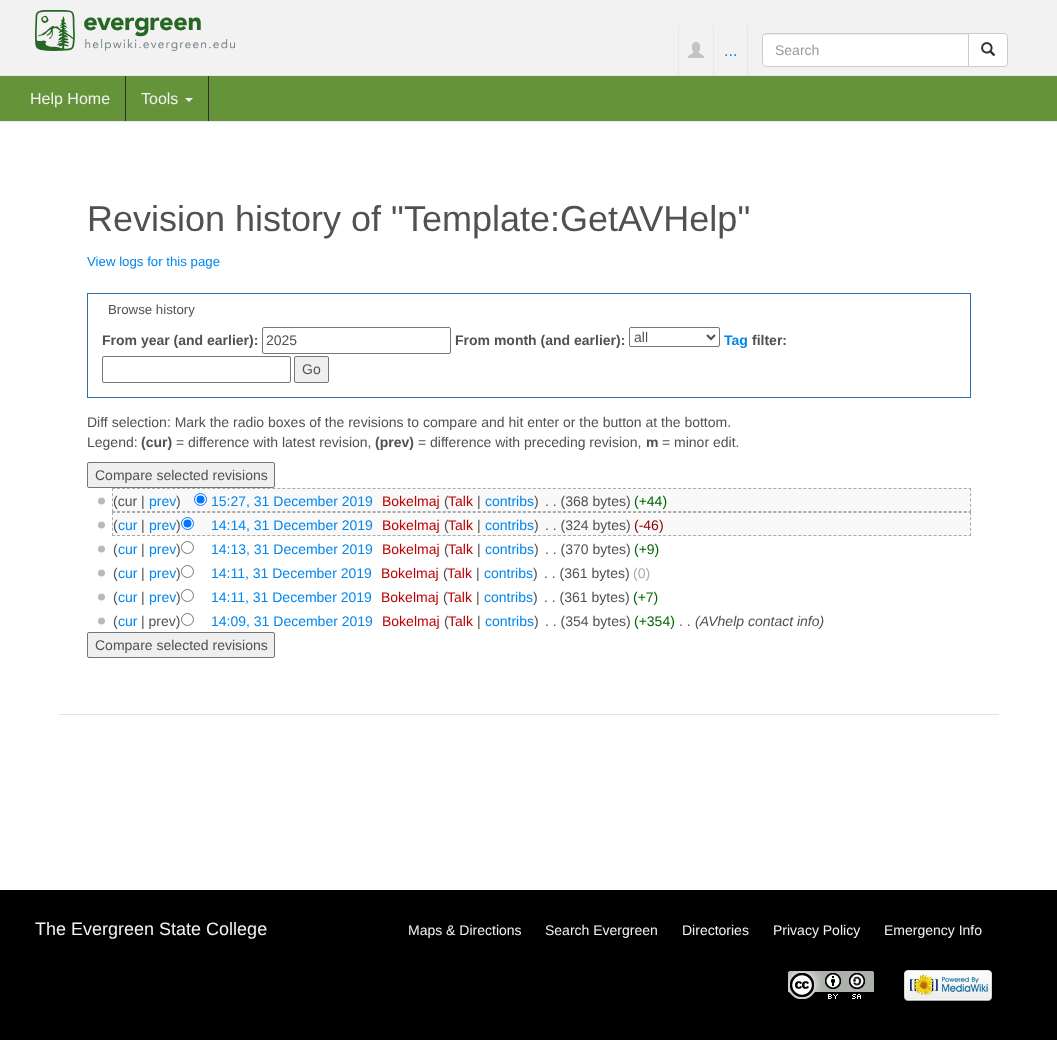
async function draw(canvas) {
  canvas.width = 1057;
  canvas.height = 1040;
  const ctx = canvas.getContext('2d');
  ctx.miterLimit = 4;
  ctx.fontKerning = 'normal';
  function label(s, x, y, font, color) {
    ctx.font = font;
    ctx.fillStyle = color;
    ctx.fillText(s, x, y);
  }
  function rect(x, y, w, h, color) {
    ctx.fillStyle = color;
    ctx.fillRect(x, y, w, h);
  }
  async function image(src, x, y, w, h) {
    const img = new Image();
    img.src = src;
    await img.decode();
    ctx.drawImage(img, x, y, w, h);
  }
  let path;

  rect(0, 0, 1057, 1040, '#fff');
  rect(0, 0, 1057, 75, '#f2f2f2');
  await image('assets/img1.png', 35, 10, 200, 41);
  rect(713, 25, 1, 50, '#e7e7e7');
  rect(678, 25, 1, 50, '#e7e7e7');
  await image('assets/img2.png', 688, 42, 16, 16);
  rect(747, 25, 1, 50, '#e7e7e7');
  label('...', 724, 56, '16px Liberation Sans', '#0086ee');
  ctx.fillStyle = '#fff';
  ctx.beginPath();
  ctx.roundRect(762, 33, 207, 34, [4, 0, 0, 4]);
  ctx.fill();
  ctx.fillStyle = '#ececec';
  path = new Path2D('M766 35H968V34H765C763 35 763 36 763 38C763 36 764 35 766 35Z');
  ctx.fill(path);
  ctx.beginPath();
  ctx.roundRect(762.5, 33.5, 206, 33, [3.5, 0, 0, 3.5]);
  ctx.strokeStyle = '#ccc';
  ctx.stroke();
  label('Search', 775, 55, '14px Liberation Sans', '#999');
  ctx.fillStyle = '#fff';
  ctx.beginPath();
  ctx.roundRect(968.5, 33.5, 39, 33, [0, 3.5, 3.5, 0]);
  ctx.fill();
  ctx.stroke();
  await image('assets/img3.png', 981, 42, 15, 14);
  rect(0, 76, 1057, 45, '#64933a');
  rect(0, 75, 1057, 1, '#e7e7e7');
  rect(0, 121, 1057, 1, '#e7e7e7');
  rect(125, 76, 1, 45, '#303030');
  label('Help Home', 30, 104, '16px Liberation Sans', '#f2f2f2');
  rect(208, 76, 1, 45, '#303030');
  label('Tools', 141, 104, '16px Liberation Sans', '#f2f2f2');
  path = new Path2D('M185 98H193L189 102Z');
  ctx.fill(path);
  label('Revision history of "Template:GetAVHelp"', 87, 231, '36px Liberation Sans', '#515151');
  label('View logs for this page', 87, 266, '13.25px Liberation Sans', '#0086ee');
  ctx.strokeStyle = '#2f6fab';
  ctx.strokeRect(87.5, 293.5, 883, 104);
  label('Browse history', 108, 314, '13.25px Liberation Sans', '#515151');
  label('From year (and earlier):', 102, 345, 'bold 14px Liberation Sans', '#515151');
  ctx.beginPath();
  ctx.roundRect(262.5, 327.5, 188, 26, 1.5);
  ctx.strokeStyle = '#767676';
  ctx.stroke();
  label('2025', 266, 345, '14px Liberation Sans', '#515151');
  label('From month (and earlier):', 455, 345, 'bold 14px Liberation Sans', '#515151');
  ctx.beginPath();
  ctx.roundRect(629.5, 327.5, 90, 19, 1.5);
  ctx.stroke();
  path = new Path2D('M707 335L711 339L715 335');
  ctx.strokeStyle = '#515151';
  ctx.lineWidth = 2;
  ctx.stroke(path);
  label('all', 634, 342, '14px Liberation Sans', '#515151');
  label('Tag', 724, 345, 'bold 14px Liberation Sans', '#0086ee');
  label('filter:', 752, 345, 'bold 14px Liberation Sans', '#515151');
  ctx.beginPath();
  ctx.roundRect(102.5, 356.5, 188, 26, 1.5);
  ctx.strokeStyle = '#767676';
  ctx.lineWidth = 1;
  ctx.stroke();
  ctx.fillStyle = '#efefef';
  ctx.beginPath();
  ctx.roundRect(294.5, 356.5, 34, 26, 1.5);
  ctx.fill();
  ctx.stroke();
  label('Go', 302, 374, '14px Liberation Sans', '#515151');
  label('Diff selection: Mark the radio boxes of the revisions to compare and hit enter or the button at the bottom.', 87, 427, '14px Liberation Sans', '#515151');
  label('Legend:', 87, 447, '14px Liberation Sans', '#515151');
  label('(cur)', 141, 447, 'bold 14px Liberation Sans', '#515151');
  label('= difference with latest revision,', 176, 447, '14px Liberation Sans', '#515151');
  label('(prev)', 375, 447, 'bold 14px Liberation Sans', '#515151');
  label('= difference with preceding revision,', 418, 447, '14px Liberation Sans', '#515151');
  label('m', 646, 447, 'bold 14px Liberation Sans', '#515151');
  label('= minor edit.', 662, 447, '14px Liberation Sans', '#515151');
  ctx.fillStyle = '#efefef';
  ctx.beginPath();
  ctx.roundRect(87.5, 462.5, 187, 25, 1.5);
  ctx.fill();
  ctx.stroke();
  label('Compare selected revisions', 95, 480, '14px Liberation Sans', '#515151');
  rect(112, 488, 859, 48, '#f9f9f9');
  path = new Path2D('M112 488.5H971');
  ctx.strokeStyle = '#aaa';
  ctx.setLineDash([3, 2.01]);
  ctx.stroke(path);
  path = new Path2D('M970.5 488V512');
  ctx.setLineDash([3, 2.25]);
  ctx.stroke(path);
  path = new Path2D('M112 511.5H971');
  ctx.setLineDash([3, 2.01]);
  ctx.stroke(path);
  path = new Path2D('M112.5 488V512');
  ctx.setLineDash([3, 2.25]);
  ctx.stroke(path);
  await image('assets/img4.png', 98, 497, 7, 8);
  label('(cur |', 113, 506, '14px Liberation Sans', '#515151');
  label('prev', 149, 506, '14px Liberation Sans', '#0086ee');
  label(')', 176, 506, '14px Liberation Sans', '#515151');
  ctx.fillStyle = '#fff';
  ctx.beginPath();
  ctx.arc(200.5, 499.5, 6, 0, 2 * Math.PI);
  ctx.fill();
  ctx.strokeStyle = '#0075ff';
  ctx.setLineDash([]);
  ctx.stroke();
  ctx.fillStyle = '#0075ff';
  ctx.beginPath();
  ctx.arc(200.5, 499.5, 4, 0, 2 * Math.PI);
  ctx.fill();
  label('15:27, 31 December 2019', 211, 506, '14px Liberation Sans', '#0086ee');
  label('Bokelmaj', 382, 506, '14px Liberation Sans', '#ba0000');
  label('(', 444, 506, '14px Liberation Sans', '#515151');
  label('Talk', 448, 506, '14px Liberation Sans', '#ba0000');
  label('|', 477, 506, '14px Liberation Sans', '#515151');
  label('contribs', 485, 506, '14px Liberation Sans', '#0086ee');
  label(')', 534, 506, '14px Liberation Sans', '#515151');
  label('. . (368 bytes)', 545, 506, '14px Liberation Sans', '#515151');
  label('(+44)', 634, 506, '14px Liberation Sans', '#006400');
  path = new Path2D('M112 512.5H971');
  ctx.strokeStyle = '#aaa';
  ctx.setLineDash([3, 2.01]);
  ctx.stroke(path);
  path = new Path2D('M970.5 512V536');
  ctx.setLineDash([3, 2.25]);
  ctx.stroke(path);
  path = new Path2D('M112 535.5H971');
  ctx.setLineDash([3, 2.01]);
  ctx.stroke(path);
  path = new Path2D('M112.5 512V536');
  ctx.setLineDash([3, 2.25]);
  ctx.stroke(path);
  await image('assets/img4.png', 98, 521, 7, 8);
  label('(', 113, 530, '14px Liberation Sans', '#515151');
  label('cur', 118, 530, '14px Liberation Sans', '#0086ee');
  label('|', 141, 530, '14px Liberation Sans', '#515151');
  label('prev', 149, 530, '14px Liberation Sans', '#0086ee');
  label(')', 176, 530, '14px Liberation Sans', '#515151');
  ctx.fillStyle = '#fff';
  ctx.beginPath();
  ctx.arc(187.5, 523.5, 6, 0, 2 * Math.PI);
  ctx.fill();
  ctx.strokeStyle = '#0075ff';
  ctx.setLineDash([]);
  ctx.stroke();
  ctx.fillStyle = '#0075ff';
  ctx.beginPath();
  ctx.arc(187.5, 523.5, 4, 0, 2 * Math.PI);
  ctx.fill();
  label('14:14, 31 December 2019', 211, 530, '14px Liberation Sans', '#0086ee');
  label('Bokelmaj', 382, 530, '14px Liberation Sans', '#ba0000');
  label('(', 444, 530, '14px Liberation Sans', '#515151');
  label('Talk', 448, 530, '14px Liberation Sans', '#ba0000');
  label('|', 477, 530, '14px Liberation Sans', '#515151');
  label('contribs', 485, 530, '14px Liberation Sans', '#0086ee');
  label(')', 534, 530, '14px Liberation Sans', '#515151');
  label('. . (324 bytes)', 545, 530, '14px Liberation Sans', '#515151');
  label('(-46)', 634, 530, '14px Liberation Sans', '#8b0000');
  await image('assets/img4.png', 98, 545, 7, 8);
  label('(', 113, 554, '14px Liberation Sans', '#515151');
  label('cur', 118, 554, '14px Liberation Sans', '#0086ee');
  label('|', 141, 554, '14px Liberation Sans', '#515151');
  label('prev', 149, 554, '14px Liberation Sans', '#0086ee');
  label(')', 176, 554, '14px Liberation Sans', '#515151');
  ctx.beginPath();
  ctx.arc(187.5, 547.5, 6, 0, 2 * Math.PI);
  ctx.strokeStyle = '#767676';
  ctx.stroke();
  label('14:13, 31 December 2019', 211, 554, '14px Liberation Sans', '#0086ee');
  label('Bokelmaj', 382, 554, '14px Liberation Sans', '#ba0000');
  label('(', 444, 554, '14px Liberation Sans', '#515151');
  label('Talk', 448, 554, '14px Liberation Sans', '#ba0000');
  label('|', 477, 554, '14px Liberation Sans', '#515151');
  label('contribs', 485, 554, '14px Liberation Sans', '#0086ee');
  label(')', 534, 554, '14px Liberation Sans', '#515151');
  label('. . (370 bytes)', 545, 554, '14px Liberation Sans', '#515151');
  label('(+9)', 634, 554, '14px Liberation Sans', '#006400');
  await image('assets/img4.png', 98, 569, 7, 8);
  label('(', 113, 578, '14px Liberation Sans', '#515151');
  label('cur', 118, 578, '14px Liberation Sans', '#0086ee');
  label('|', 141, 578, '14px Liberation Sans', '#515151');
  label('prev', 149, 578, '14px Liberation Sans', '#0086ee');
  label(')', 176, 578, '14px Liberation Sans', '#515151');
  ctx.beginPath();
  ctx.arc(187.5, 571.5, 6, 0, 2 * Math.PI);
  ctx.stroke();
  label('14:11, 31 December 2019', 211, 578, '14px Liberation Sans', '#0086ee');
  label('Bokelmaj', 381, 578, '14px Liberation Sans', '#ba0000');
  label('(', 443, 578, '14px Liberation Sans', '#515151');
  label('Talk', 447, 578, '14px Liberation Sans', '#ba0000');
  label('|', 476, 578, '14px Liberation Sans', '#515151');
  label('contribs', 484, 578, '14px Liberation Sans', '#0086ee');
  label(')', 533, 578, '14px Liberation Sans', '#515151');
  label('. . (361 bytes)', 544, 578, '14px Liberation Sans', '#515151');
  label('(0)', 633, 578, '14px Liberation Sans', '#aaa');
  await image('assets/img4.png', 98, 593, 7, 8);
  label('(', 113, 602, '14px Liberation Sans', '#515151');
  label('cur', 118, 602, '14px Liberation Sans', '#0086ee');
  label('|', 141, 602, '14px Liberation Sans', '#515151');
  label('prev', 149, 602, '14px Liberation Sans', '#0086ee');
  label(')', 176, 602, '14px Liberation Sans', '#515151');
  ctx.beginPath();
  ctx.arc(187.5, 595.5, 6, 0, 2 * Math.PI);
  ctx.stroke();
  label('14:11, 31 December 2019', 211, 602, '14px Liberation Sans', '#0086ee');
  label('Bokelmaj', 381, 602, '14px Liberation Sans', '#ba0000');
  label('(', 443, 602, '14px Liberation Sans', '#515151');
  label('Talk', 447, 602, '14px Liberation Sans', '#ba0000');
  label('|', 476, 602, '14px Liberation Sans', '#515151');
  label('contribs', 484, 602, '14px Liberation Sans', '#0086ee');
  label(')', 533, 602, '14px Liberation Sans', '#515151');
  label('. . (361 bytes)', 544, 602, '14px Liberation Sans', '#515151');
  label('(+7)', 633, 602, '14px Liberation Sans', '#006400');
  await image('assets/img4.png', 98, 617, 7, 8);
  label('(', 113, 626, '14px Liberation Sans', '#515151');
  label('cur', 118, 626, '14px Liberation Sans', '#0086ee');
  label('| prev)', 141, 626, '14px Liberation Sans', '#515151');
  ctx.beginPath();
  ctx.arc(187.5, 619.5, 6, 0, 2 * Math.PI);
  ctx.stroke();
  label('14:09, 31 December 2019', 211, 626, '14px Liberation Sans', '#0086ee');
  label('Bokelmaj', 382, 626, '14px Liberation Sans', '#ba0000');
  label('(', 444, 626, '14px Liberation Sans', '#515151');
  label('Talk', 448, 626, '14px Liberation Sans', '#ba0000');
  label('|', 477, 626, '14px Liberation Sans', '#515151');
  label('contribs', 485, 626, '14px Liberation Sans', '#0086ee');
  label(')', 534, 626, '14px Liberation Sans', '#515151');
  label('. . (354 bytes)', 545, 626, '14px Liberation Sans', '#515151');
  label('(+354)', 634, 626, '14px Liberation Sans', '#006400');
  label('. .', 679, 626, '14px Liberation Sans', '#515151');
  label('(AVhelp contact info)', 695, 626, 'italic 14px Liberation Sans', '#515151');
  ctx.fillStyle = '#efefef';
  ctx.beginPath();
  ctx.roundRect(87.5, 632.5, 187, 25, 1.5);
  ctx.fill();
  ctx.stroke();
  label('Compare selected revisions', 95, 650, '14px Liberation Sans', '#515151');
  rect(59, 714, 940, 1, '#e5e5e5');
  rect(0, 890, 1057, 150, '#000');
  label('The Evergreen State College', 35, 935, '18px Liberation Sans', '#f2f2f2');
  label('Maps & Directions', 408, 935, '14px Liberation Sans', '#f2f2f2');
  label('Search Evergreen', 545, 935, '14px Liberation Sans', '#f2f2f2');
  label('Directories', 682, 935, '14px Liberation Sans', '#f2f2f2');
  label('Privacy Policy', 773, 935, '14px Liberation Sans', '#f2f2f2');
  label('Emergency Info', 884, 935, '14px Liberation Sans', '#f2f2f2');
  await image('assets/img5.png', 787, 970, 87, 31);
  await image('assets/img6.png', 904, 970, 88, 31);
}

draw(document.querySelector('canvas'));
